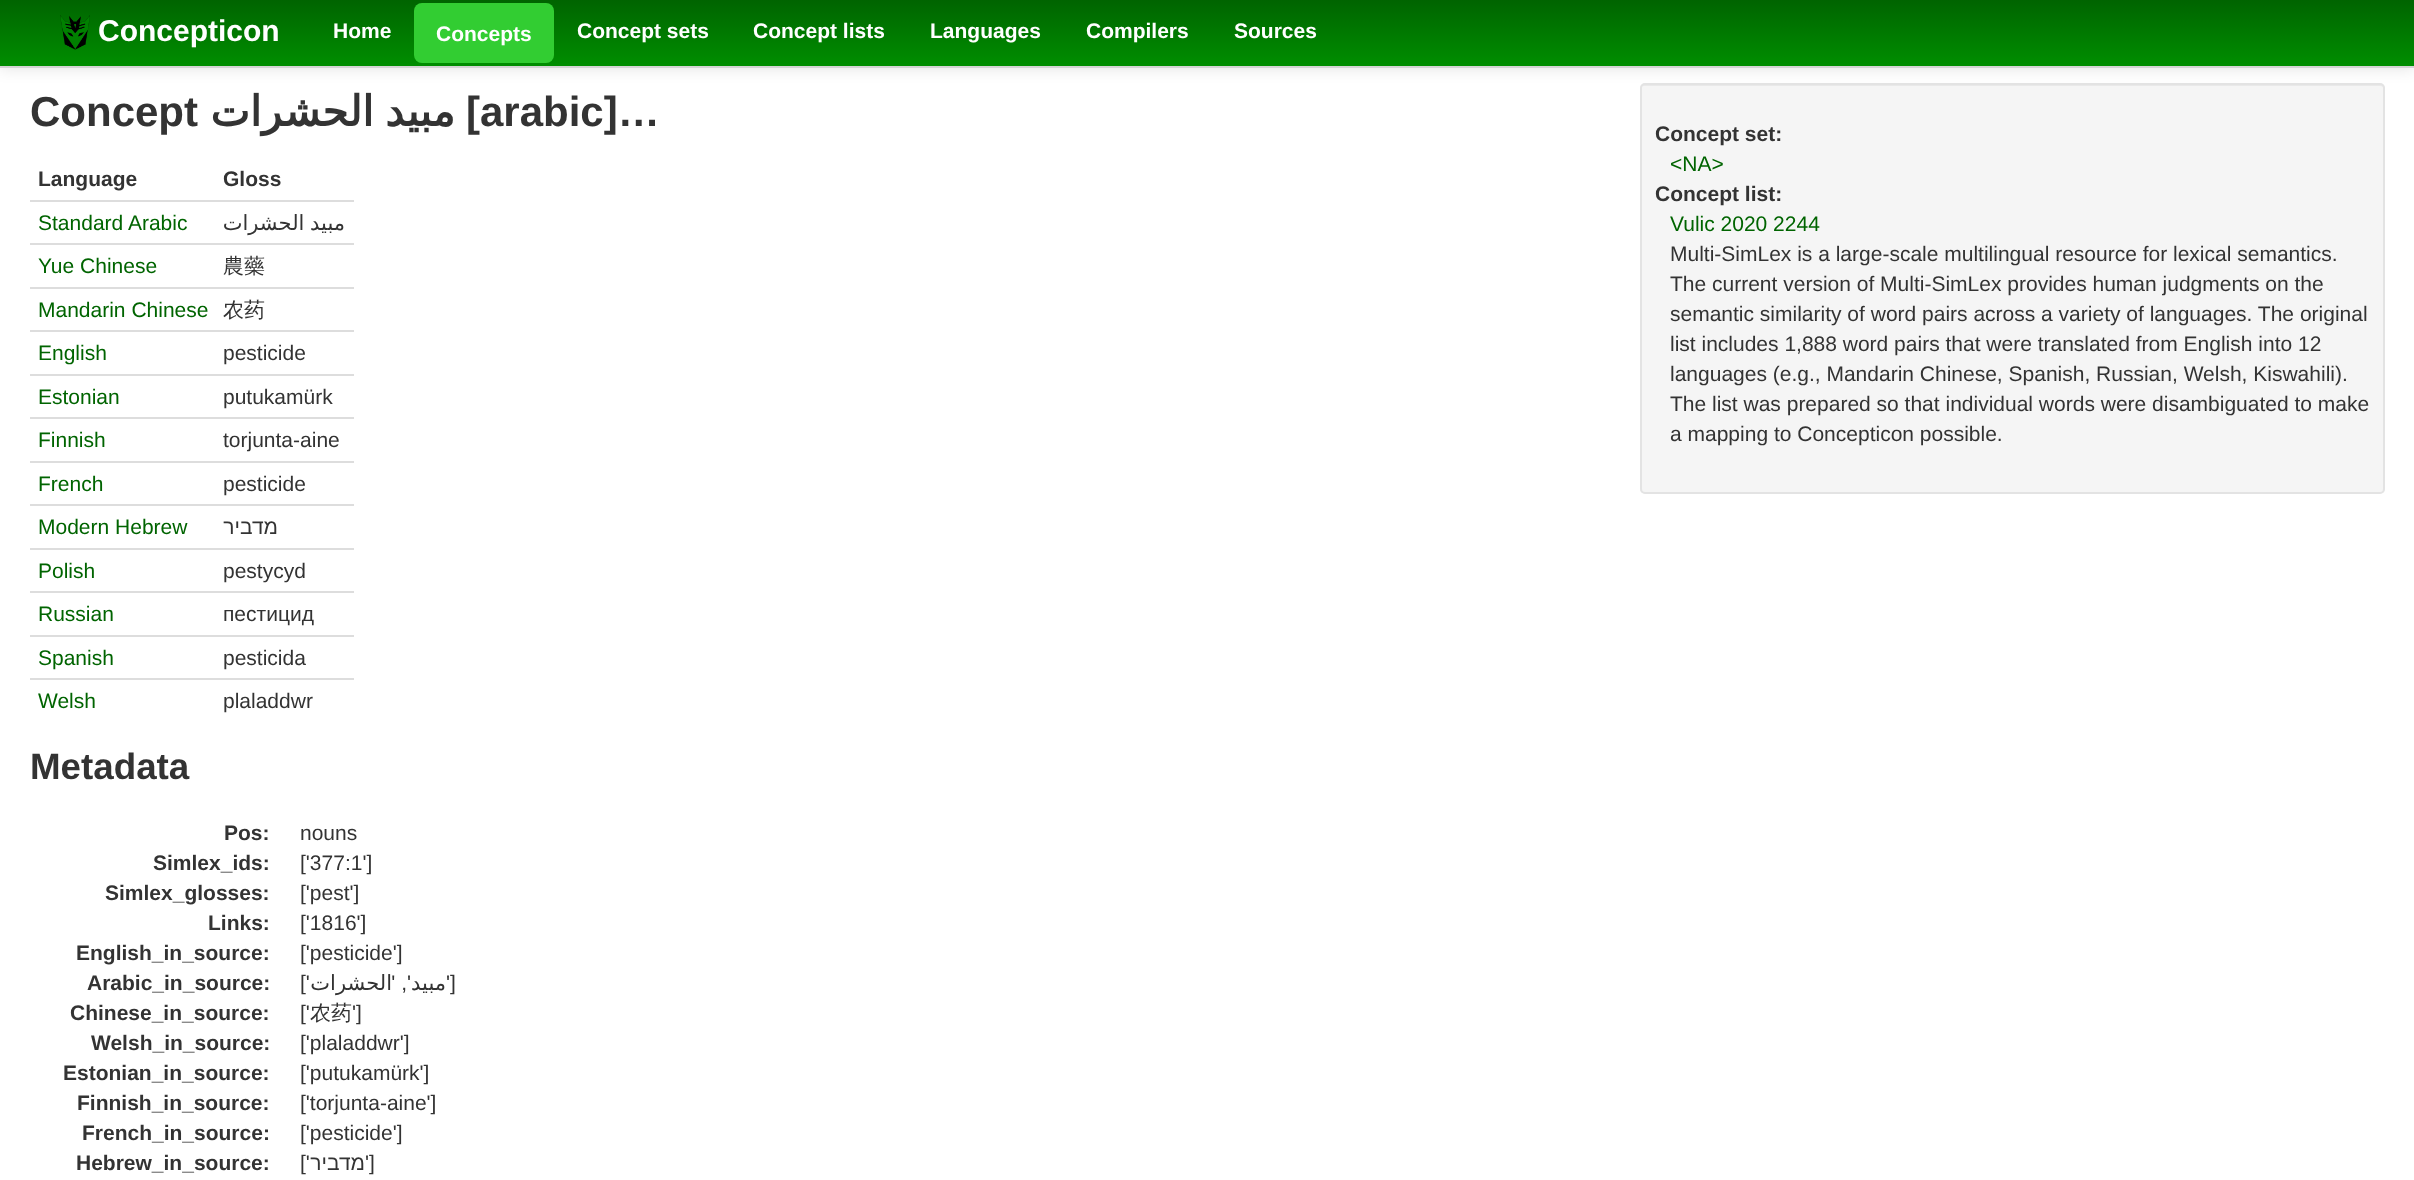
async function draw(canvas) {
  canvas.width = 2414;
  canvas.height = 1180;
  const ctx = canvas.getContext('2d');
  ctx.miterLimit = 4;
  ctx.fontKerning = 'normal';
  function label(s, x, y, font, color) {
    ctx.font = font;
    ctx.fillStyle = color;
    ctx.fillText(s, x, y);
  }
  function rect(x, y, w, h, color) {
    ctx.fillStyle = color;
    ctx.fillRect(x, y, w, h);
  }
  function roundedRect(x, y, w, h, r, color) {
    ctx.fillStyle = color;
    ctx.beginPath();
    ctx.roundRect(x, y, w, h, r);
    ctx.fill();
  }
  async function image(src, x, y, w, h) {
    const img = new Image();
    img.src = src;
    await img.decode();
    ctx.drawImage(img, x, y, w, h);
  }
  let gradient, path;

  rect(0, 0, 2414, 1180, '#fff');
  ctx.fillStyle = '#0000001a';
  ctx.filter = 'blur(7.5px)';
  ctx.beginPath();
  ctx.rect(0, 2, 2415, 67);
  ctx.fill();
  ctx.filter = 'none';
  gradient = ctx.createLinearGradient(1208, 0, 1208, 66);
  gradient.addColorStop(0, '#006400');
  gradient.addColorStop(1, '#008e00');
  ctx.fillStyle = gradient;
  ctx.fillRect(0, 0, 2414, 66);
  rect(0, 66, 2414, 2, '#d4d4d4');
  await image('assets/img1.png', 60, 15, 30, 35);
  label('Concepticon', 98, 41, 'bold 30px Liberation Sans', '#fff');
  label('Home', 333, 38, 'bold 21px Liberation Sans', '#fff');
  roundedRect(414, 3, 140, 60, 8, '#32cd32');
  label('Concepts', 436, 41, 'bold 21px Liberation Sans', '#fff');
  label('Concept sets', 577, 38, 'bold 21px Liberation Sans', '#fff');
  label('Concept lists', 753, 38, 'bold 21px Liberation Sans', '#fff');
  label('Languages', 930, 38, 'bold 21px Liberation Sans', '#fff');
  label('Compilers', 1086, 38, 'bold 21px Liberation Sans', '#fff');
  label('Sources', 1234, 38, 'bold 21px Liberation Sans', '#fff');
  label('Concept', 30, 126, 'bold 42px Liberation Sans', '#333');
  ctx.wordSpacing = '-2px';
  ctx.direction = 'rtl';
  label('مبيد الحشرات', 455, 126, 'bold 42px DejaVu Sans', '#333');
  ctx.wordSpacing = '0px';
  ctx.direction = 'ltr';
  label('[arabic]…', 466, 126, 'bold 42px Liberation Sans', '#333');
  label('Language', 38, 186, 'bold 21px Liberation Sans', '#333');
  label('Gloss', 223, 186, 'bold 21px Liberation Sans', '#333');
  label('Standard Arabic', 38, 230, '21px Liberation Sans', '#006400');
  rect(30, 200, 324, 2, '#ddd');
  ctx.wordSpacing = '-1px';
  ctx.direction = 'rtl';
  label('مبيد الحشرات', 345, 230, '21px DejaVu Sans', '#333');
  ctx.wordSpacing = '0px';
  ctx.direction = 'ltr';
  label('Yue Chinese', 38, 273, '21px Liberation Sans', '#006400');
  rect(30, 243, 324, 2, '#ddd');
  label('農藥', 223, 273, '500 21px WenQuanYi Zen Hei', '#333');
  label('Mandarin Chinese', 38, 317, '21px Liberation Sans', '#006400');
  rect(30, 287, 324, 2, '#ddd');
  label('农药', 223, 317, '500 21px WenQuanYi Zen Hei', '#333');
  label('English', 38, 360, '21px Liberation Sans', '#006400');
  rect(30, 330, 324, 2, '#ddd');
  label('pesticide', 223, 360, '21px Liberation Sans', '#333');
  label('Estonian', 38, 404, '21px Liberation Sans', '#006400');
  rect(30, 374, 324, 2, '#ddd');
  label('putukamürk', 223, 404, '21px Liberation Sans', '#333');
  label('Finnish', 38, 447, '21px Liberation Sans', '#006400');
  rect(30, 417, 324, 2, '#ddd');
  label('torjunta-aine', 223, 447, '21px Liberation Sans', '#333');
  label('French', 38, 491, '21px Liberation Sans', '#006400');
  rect(30, 461, 324, 2, '#ddd');
  label('pesticide', 223, 491, '21px Liberation Sans', '#333');
  label('Modern Hebrew', 38, 534, '21px Liberation Sans', '#006400');
  rect(30, 504, 324, 2, '#ddd');
  ctx.direction = 'rtl';
  label('מדביר', 278, 534, '21px Liberation Sans', '#333');
  ctx.direction = 'ltr';
  label('Polish', 38, 578, '21px Liberation Sans', '#006400');
  rect(30, 548, 324, 2, '#ddd');
  label('pestycyd', 223, 578, '21px Liberation Sans', '#333');
  label('Russian', 38, 621, '21px Liberation Sans', '#006400');
  rect(30, 591, 324, 2, '#ddd');
  label('пестицид', 223, 621, '21px Liberation Sans', '#333');
  label('Spanish', 38, 665, '21px Liberation Sans', '#006400');
  rect(30, 635, 324, 2, '#ddd');
  label('pesticida', 223, 665, '21px Liberation Sans', '#333');
  label('Welsh', 38, 708, '21px Liberation Sans', '#006400');
  rect(30, 678, 324, 2, '#ddd');
  label('plaladdwr', 223, 708, '21px Liberation Sans', '#333');
  label('Metadata', 30, 779, 'bold 36.75px Liberation Sans', '#333');
  label('Pos:', 224, 840, 'bold 21px Liberation Sans', '#333');
  label('nouns', 300, 840, '21px Liberation Sans', '#333');
  label('Simlex_ids:', 153, 870, 'bold 21px Liberation Sans', '#333');
  label('[\'377:1\']', 300, 870, '21px Liberation Sans', '#333');
  label('Simlex_glosses:', 105, 900, 'bold 21px Liberation Sans', '#333');
  label('[\'pest\']', 300, 900, '21px Liberation Sans', '#333');
  label('Links:', 208, 930, 'bold 21px Liberation Sans', '#333');
  label('[\'1816\']', 300, 930, '21px Liberation Sans', '#333');
  label('English_in_source:', 76, 960, 'bold 21px Liberation Sans', '#333');
  label('[\'pesticide\']', 300, 960, '21px Liberation Sans', '#333');
  label('Arabic_in_source:', 87, 990, 'bold 21px Liberation Sans', '#333');
  label('[\'', 300, 990, '21px Liberation Sans', '#333');
  ctx.direction = 'rtl';
  label('الحشرات', 392, 990, '21px DejaVu Sans', '#333');
  label('\', \'', 411, 990, '21px Liberation Sans', '#333');
  label('مبيد', 446, 990, '21px DejaVu Sans', '#333');
  ctx.direction = 'ltr';
  label('\']', 446, 990, '21px Liberation Sans', '#333');
  label('Chinese_in_source:', 70, 1020, 'bold 21px Liberation Sans', '#333');
  label('[\'', 300, 1020, '21px Liberation Sans', '#333');
  label('农药', 310, 1020, '500 21px WenQuanYi Zen Hei', '#333');
  label('\']', 352, 1020, '21px Liberation Sans', '#333');
  label('Welsh_in_source:', 91, 1050, 'bold 21px Liberation Sans', '#333');
  label('[\'plaladdwr\']', 300, 1050, '21px Liberation Sans', '#333');
  label('Estonian_in_source:', 63, 1080, 'bold 21px Liberation Sans', '#333');
  label('[\'putukamürk\']', 300, 1080, '21px Liberation Sans', '#333');
  label('Finnish_in_source:', 77, 1110, 'bold 21px Liberation Sans', '#333');
  label('[\'torjunta-aine\']', 300, 1110, '21px Liberation Sans', '#333');
  label('French_in_source:', 82, 1140, 'bold 21px Liberation Sans', '#333');
  label('[\'pesticide\']', 300, 1140, '21px Liberation Sans', '#333');
  label('Hebrew_in_source:', 76, 1170, 'bold 21px Liberation Sans', '#333');
  label('[\'', 300, 1170, '21px Liberation Sans', '#333');
  ctx.direction = 'rtl';
  label('מדביר', 365, 1170, '21px Liberation Sans', '#333');
  ctx.direction = 'ltr';
  label('\']', 365, 1170, '21px Liberation Sans', '#333');
  roundedRect(1640, 83, 745, 411, 5, '#f5f5f5');
  ctx.fillStyle = '#e9e9e9';
  path = new Path2D('M1644 86H2380C2382 86 2384 87 2384 88C2384 86 2383 84 2381 84H1644C1642 84 1641 86 1641 88C1641 87 1642 86 1644 86Z');
  ctx.fill(path);
  ctx.beginPath();
  ctx.roundRect(1641, 84, 743, 409, 4);
  ctx.strokeStyle = '#e3e3e3';
  ctx.lineWidth = 2;
  ctx.stroke();
  label('Concept set:', 1655, 141, 'bold 21px Liberation Sans', '#333');
  label('<NA>', 1670, 171, '21px Liberation Sans', '#006400');
  label('Concept list:', 1655, 201, 'bold 21px Liberation Sans', '#333');
  label('Vulic 2020 2244', 1670, 231, '21px Liberation Sans', '#006400');
  label('Multi-SimLex is a large-scale multilingual resource for lexical semantics.', 1670, 261, '21px Liberation Sans', '#333');
  label('The current version of Multi-SimLex provides human judgments on the', 1670, 291, '21px Liberation Sans', '#333');
  label('semantic similarity of word pairs across a variety of languages. The original', 1670, 321, '21px Liberation Sans', '#333');
  label('list includes 1,888 word pairs that were translated from English into 12', 1670, 351, '21px Liberation Sans', '#333');
  label('languages (e.g., Mandarin Chinese, Spanish, Russian, Welsh, Kiswahili).', 1670, 381, '21px Liberation Sans', '#333');
  label('The list was prepared so that individual words were disambiguated to make', 1670, 411, '21px Liberation Sans', '#333');
  label('a mapping to Concepticon possible.', 1670, 441, '21px Liberation Sans', '#333');
}

draw(document.querySelector('canvas'));
